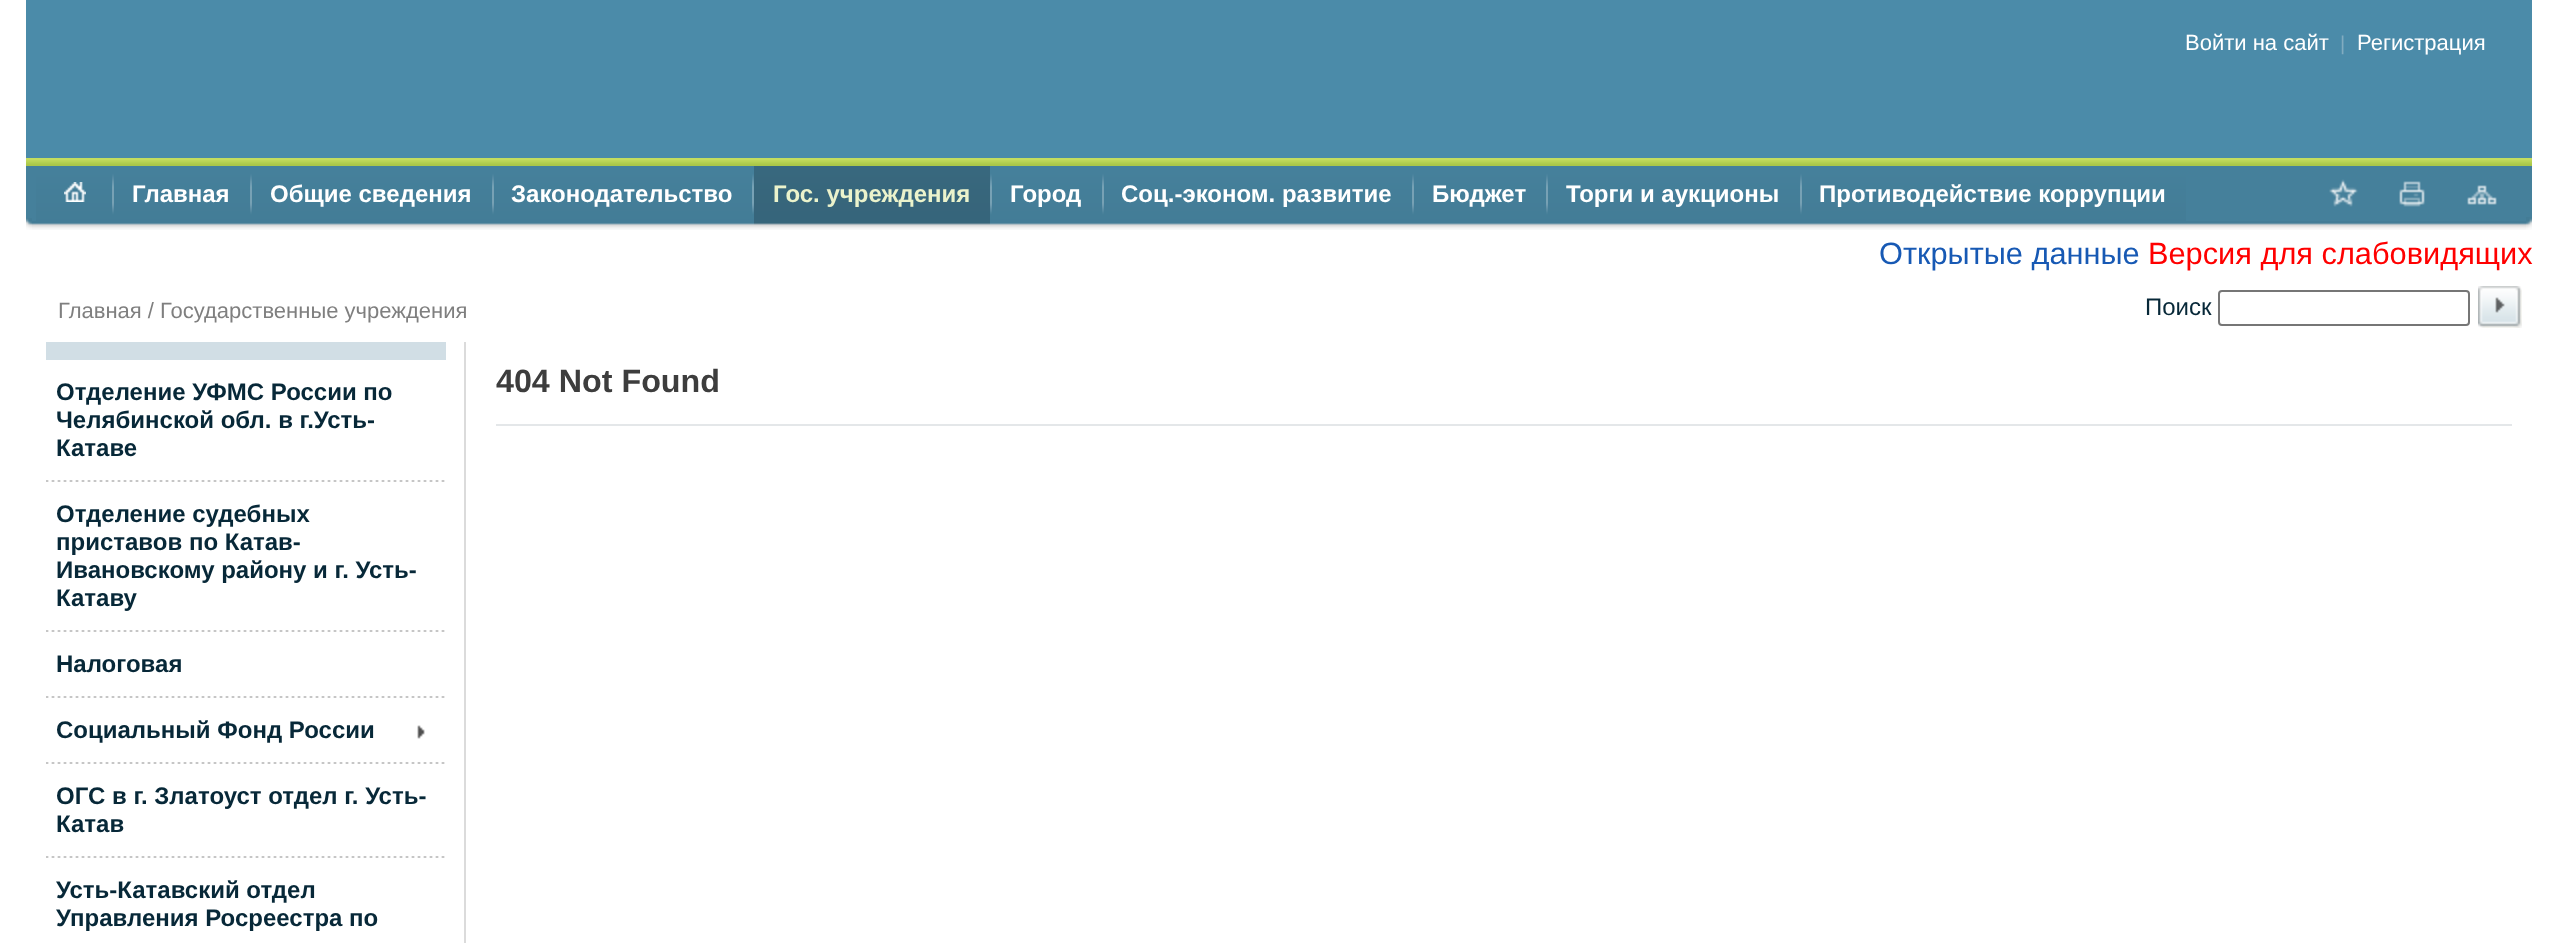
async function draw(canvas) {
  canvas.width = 2558;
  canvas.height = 943;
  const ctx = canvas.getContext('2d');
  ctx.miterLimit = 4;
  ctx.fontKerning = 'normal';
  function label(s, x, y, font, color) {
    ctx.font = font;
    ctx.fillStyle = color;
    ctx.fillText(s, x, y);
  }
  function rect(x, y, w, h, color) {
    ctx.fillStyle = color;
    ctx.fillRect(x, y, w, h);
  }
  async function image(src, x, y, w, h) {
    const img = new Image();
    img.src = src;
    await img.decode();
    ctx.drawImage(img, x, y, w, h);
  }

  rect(0, 0, 2558, 943, '#fff');
  rect(26, 0, 2506, 158, '#4b8ba9');
  label('Войти на сайт', 2185, 50, '22px Liberation Sans', '#fff');
  label('|', 2340, 50, '20px Liberation Sans', '#81acc0');
  label('Регистрация', 2357, 50, '22px Liberation Sans', '#fff');
  rect(26, 158, 2506, 2, '#c4dd5f');
  await image('assets/img1.png', 26, 160, 2506, 6);
  rect(26, 166, 2506, 55, '#45809b');
  await image('assets/img2.png', 32, 221, 2494, 9);
  await image('assets/img3.png', 26, 218, 6, 12);
  await image('assets/img4.png', 36, 166, 2150, 64);
  await image('assets/img5.png', 64, 182, 22, 20);
  await image('assets/img6.png', 112, 166, 2, 64);
  label('Главная', 132, 202, 'bold 24px Liberation Sans', '#fff');
  await image('assets/img6.png', 250, 166, 2, 64);
  label('Общие сведения', 270, 202, 'bold 24px Liberation Sans', '#fff');
  await image('assets/img6.png', 492, 166, 2, 64);
  label('Законодательство', 511, 202, 'bold 24px Liberation Sans', '#fff');
  await image('assets/img6.png', 752, 166, 2, 64);
  await image('assets/img7.png', 754, 166, 236, 60);
  label('Гос. учреждения', 773, 202, 'bold 24px Liberation Sans', '#ebf3cc');
  await image('assets/img6.png', 990, 166, 2, 64);
  label('Город', 1010, 202, 'bold 24px Liberation Sans', '#fff');
  await image('assets/img6.png', 1102, 166, 2, 64);
  label('Соц.-эконом. развитие', 1121, 202, 'bold 24px Liberation Sans', '#fff');
  await image('assets/img6.png', 1412, 166, 2, 64);
  label('Бюджет', 1432, 202, 'bold 24px Liberation Sans', '#fff');
  await image('assets/img6.png', 1546, 166, 2, 64);
  label('Торги и аукционы', 1566, 202, 'bold 24px Liberation Sans', '#fff');
  await image('assets/img6.png', 1800, 166, 2, 64);
  label('Противодействие коррупции', 1819, 202, 'bold 24px Liberation Sans', '#fff');
  await image('assets/img8.png', 2526, 217, 6, 13);
  await image('assets/img9.png', 2329, 179, 29, 28);
  await image('assets/img10.png', 2399, 181, 26, 26);
  await image('assets/img11.png', 2467, 185, 30, 20);
  label('Открытые данные', 1879, 264, '30.75px Liberation Sans', '#1759b4');
  label('Версия для слабовидящих', 2148, 264, '30.75px Liberation Sans', '#f00');
  label('Главная / Государственные учреждения', 58, 318, '22px Liberation Sans', '#7f7f7f');
  label('Поиск', 2145, 315, '24px Liberation Sans', '#072838');
  ctx.beginPath();
  ctx.roundRect(2219, 291, 250, 34, 3);
  ctx.strokeStyle = '#767676';
  ctx.lineWidth = 2;
  ctx.stroke();
  await image('assets/img12.png', 2478, 286, 44, 42);
  rect(496, 424, 2016, 2, '#e4e7e9');
  label('404 Not Found', 496, 392, 'bold 32.25px Liberation Sans', '#3d3d3d');
  rect(464, 342, 2, 601, '#dbdbdb');
  rect(46, 342, 400, 18, '#d1dee5');
  label('Отделение УФМС России по', 56, 400, 'bold 24px Liberation Sans', '#072838');
  label('Челябинской обл. в г.Усть-', 56, 428, 'bold 24px Liberation Sans', '#072838');
  label('Катаве', 56, 456, 'bold 24px Liberation Sans', '#072838');
  await image('assets/img13.png', 46, 480, 399, 2);
  label('Отделение судебных', 56, 522, 'bold 24px Liberation Sans', '#072838');
  label('приставов по Катав-', 56, 550, 'bold 24px Liberation Sans', '#072838');
  label('Ивановскому району и г. Усть-', 56, 578, 'bold 24px Liberation Sans', '#072838');
  label('Катаву', 56, 606, 'bold 24px Liberation Sans', '#072838');
  await image('assets/img13.png', 46, 630, 399, 2);
  label('Налоговая', 56, 672, 'bold 24px Liberation Sans', '#072838');
  await image('assets/img13.png', 46, 696, 399, 2);
  await image('assets/img14.png', 417, 725, 8, 14);
  label('Социальный Фонд России', 56, 738, 'bold 24px Liberation Sans', '#072838');
  await image('assets/img13.png', 46, 762, 399, 2);
  label('ОГС в г. Златоуст отдел г. Усть-', 56, 804, 'bold 24px Liberation Sans', '#072838');
  label('Катав', 56, 832, 'bold 24px Liberation Sans', '#072838');
  await image('assets/img13.png', 46, 856, 399, 2);
  label('Усть-Катавский отдел', 56, 898, 'bold 24px Liberation Sans', '#072838');
  label('Управления Росреестра по', 56, 926, 'bold 24px Liberation Sans', '#072838');
}

draw(document.querySelector('canvas'));
